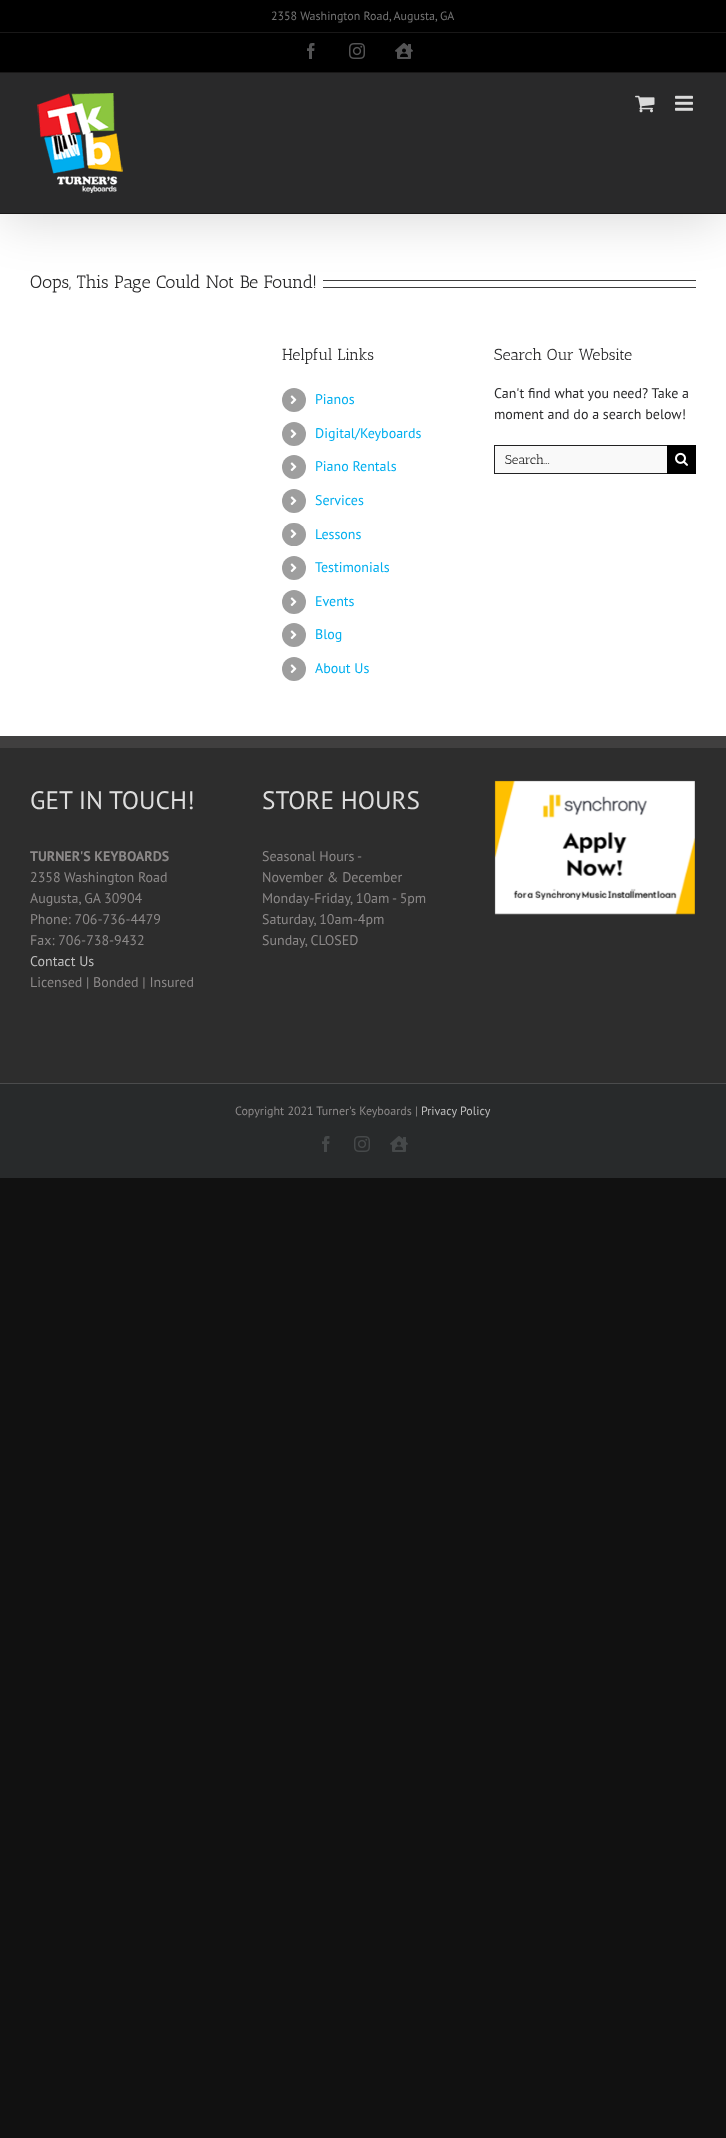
async function draw(canvas) {
  canvas.width = 726;
  canvas.height = 2138;
  const ctx = canvas.getContext('2d');
  ctx.miterLimit = 4;
  ctx.fontKerning = 'normal';
  function label(s, x, y, font, color) {
    ctx.font = font;
    ctx.fillStyle = color;
    ctx.fillText(s, x, y);
  }
  function rect(x, y, w, h, color) {
    ctx.fillStyle = color;
    ctx.fillRect(x, y, w, h);
  }
  function roundedRect(x, y, w, h, r, color) {
    ctx.fillStyle = color;
    ctx.beginPath();
    ctx.roundRect(x, y, w, h, r);
    ctx.fill();
  }
  async function image(src, x, y, w, h) {
    const img = new Image();
    img.src = src;
    await img.decode();
    ctx.drawImage(img, x, y, w, h);
  }

  rect(0, 0, 726, 2138, '#111');
  rect(0, 214, 726, 522, '#fff');
  rect(323, 280, 373, 1, '#3e3e3e');
  rect(323, 287, 373, 1, '#3e3e3e');
  ctx.fillStyle = '#00000024';
  ctx.filter = 'blur(25px)';
  ctx.beginPath();
  ctx.rect(2, 12, 722, 210);
  ctx.fill();
  ctx.filter = 'none';
  rect(0, 0, 726, 72, '#000');
  rect(0, 72, 726, 1, '#191818');
  rect(0, 32, 726, 1, '#191818');
  label('2358 Washington Road, Augusta, GA', 271, 20, '12px PT Sans', '#747474');
  await image('assets/img1.png', 307, 43, 8, 16);
  await image('assets/img2.png', 349, 43, 16, 16);
  await image('assets/img3.png', 395, 43, 18, 16);
  rect(0, 73, 726, 140, '#29292a');
  rect(0, 213, 726, 1, '#191818');
  await image('assets/img4.png', 37, 93, 86, 100);
  await image('assets/img5.png', 635, 95, 20, 18);
  await image('assets/img6.png', 675, 95, 18, 16);
  label('Oops, This Page Could Not Be Found!', 30, 288, '18px Antic Slab', '#29292a');
  label('Helpful Links', 282, 360, '16px Antic Slab', '#29292a');
  ctx.fillStyle = '#9e9e9e';
  ctx.beginPath();
  ctx.arc(294, 400, 12, 0, 2 * Math.PI);
  ctx.fill();
  await image('assets/img7.png', 290, 395, 7, 9);
  label('Pianos', 315, 404, '14px PT Sans', '#00aeef');
  ctx.fillStyle = '#9e9e9e';
  ctx.beginPath();
  ctx.arc(294, 434, 12, 0, 2 * Math.PI);
  ctx.fill();
  await image('assets/img7.png', 290, 429, 7, 9);
  label('Digital/Keyboards', 315, 438, '14px PT Sans', '#00aeef');
  ctx.fillStyle = '#9e9e9e';
  ctx.beginPath();
  ctx.arc(294, 467, 12, 0, 2 * Math.PI);
  ctx.fill();
  await image('assets/img7.png', 290, 462, 7, 9);
  label('Piano Rentals', 315, 471, '14px PT Sans', '#00aeef');
  ctx.fillStyle = '#9e9e9e';
  ctx.beginPath();
  ctx.arc(294, 501, 12, 0, 2 * Math.PI);
  ctx.fill();
  await image('assets/img7.png', 290, 496, 7, 9);
  label('Services', 315, 505, '14px PT Sans', '#00aeef');
  roundedRect(282, 523, 24, 23, 11.5, '#9e9e9e');
  await image('assets/img7.png', 290, 529, 7, 9);
  label('Lessons', 315, 539, '14px PT Sans', '#00aeef');
  ctx.fillStyle = '#9e9e9e';
  ctx.beginPath();
  ctx.arc(294, 568, 12, 0, 2 * Math.PI);
  ctx.fill();
  await image('assets/img7.png', 290, 563, 7, 9);
  label('Testimonials', 315, 572, '14px PT Sans', '#00aeef');
  ctx.fillStyle = '#9e9e9e';
  ctx.beginPath();
  ctx.arc(294, 602, 12, 0, 2 * Math.PI);
  ctx.fill();
  await image('assets/img7.png', 290, 597, 7, 9);
  label('Events', 315, 606, '14px PT Sans', '#00aeef');
  ctx.fillStyle = '#9e9e9e';
  ctx.beginPath();
  ctx.arc(294, 635, 12, 0, 2 * Math.PI);
  ctx.fill();
  await image('assets/img7.png', 290, 630, 7, 9);
  label('Blog', 315, 639, '14px PT Sans', '#00aeef');
  ctx.fillStyle = '#9e9e9e';
  ctx.beginPath();
  ctx.arc(294, 669, 12, 0, 2 * Math.PI);
  ctx.fill();
  await image('assets/img7.png', 290, 664, 7, 9);
  label('About Us', 315, 673, '14px PT Sans', '#00aeef');
  label('Search Our Website', 494, 360, '16px Antic Slab', '#29292a');
  label('Can\'t find what you need? Take a', 494, 398, '14px PT Sans', '#29292a');
  label('moment and do a search below!', 494, 419, '14px PT Sans', '#29292a');
  rect(495, 446, 172, 27, '#f9f9f9');
  rect(494, 445, 173, 1, '#212122');
  rect(494, 473, 173, 1, '#212122');
  rect(494, 445, 1, 29, '#212122');
  label('Search...', 505, 464, '13px Antic Slab', '#1c1c1c');
  rect(667, 445, 29, 29, '#000');
  await image('assets/img8.png', 675, 452, 13, 14);
  rect(0, 748, 726, 335, '#2d2d2d');
  rect(0, 736, 726, 12, '#403f3f');
  label('GET IN TOUCH!', 30, 809, '25.25px PT Sans', '#ddd');
  label('TURNER\'S KEYBOARDS', 30, 861, 'bold 14px PT Sans', '#8c8989');
  label('2358 Washington Road', 30, 882, '14px PT Sans', '#8c8989');
  label('Augusta, GA 30904', 30, 903, '14px PT Sans', '#8c8989');
  label('Phone: 706-736-4479', 30, 924, '14px PT Sans', '#8c8989');
  label('Fax: 706-738-9432', 30, 945, '14px PT Sans', '#8c8989');
  label('Contact Us', 30, 966, '14px PT Sans', '#bfbfbf');
  label('Licensed | Bonded | Insured', 30, 987, '14px PT Sans', '#8c8989');
  label('STORE HOURS', 262, 809, '25.25px PT Sans', '#ddd');
  label('Seasonal Hours -', 262, 861, '14px PT Sans', '#8c8989');
  label('November & December', 262, 882, '14px PT Sans', '#8c8989');
  label('Monday-Friday, 10am - 5pm', 262, 903, '14px PT Sans', '#8c8989');
  label('Saturday, 10am-4pm', 262, 924, '14px PT Sans', '#8c8989');
  label('Sunday, CLOSED', 262, 945, '14px PT Sans', '#8c8989');
  await image('assets/img9.png', 494, 780, 201, 135);
  rect(0, 1084, 726, 94, '#282a2b');
  rect(0, 1083, 726, 1, '#4b4c4d');
  label('Copyright 2021 Turner\'s Keyboards |', 235, 1115, '12px PT Sans', '#8c8989');
  label('Privacy Policy', 421, 1115, '12px PT Sans', '#bfbfbf');
  await image('assets/img10.png', 322, 1136, 8, 16);
  await image('assets/img11.png', 354, 1136, 16, 16);
  await image('assets/img12.png', 390, 1136, 18, 16);
}

draw(document.querySelector('canvas'));
